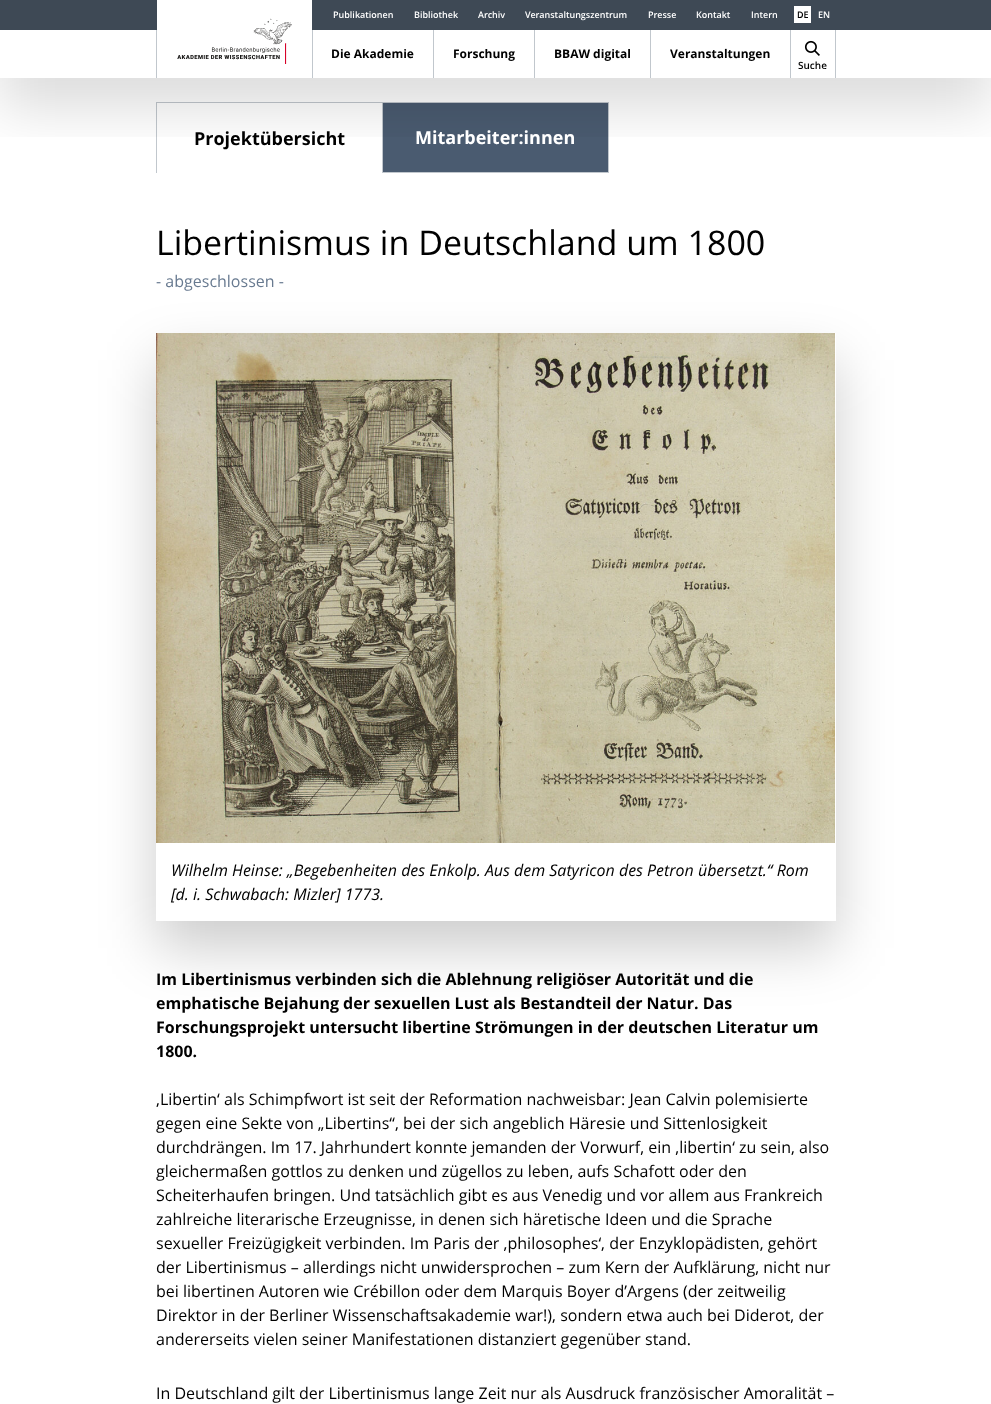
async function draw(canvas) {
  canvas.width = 991;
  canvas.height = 1404;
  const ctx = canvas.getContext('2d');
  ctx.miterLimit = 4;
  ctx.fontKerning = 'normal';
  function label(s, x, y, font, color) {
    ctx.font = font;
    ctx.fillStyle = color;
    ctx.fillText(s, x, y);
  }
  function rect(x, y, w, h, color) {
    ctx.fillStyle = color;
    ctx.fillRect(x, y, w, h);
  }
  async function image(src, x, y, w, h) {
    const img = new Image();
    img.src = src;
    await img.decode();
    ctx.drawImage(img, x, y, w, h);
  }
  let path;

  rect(0, 0, 991, 1404, '#fff');
  rect(156, 102, 453, 1, '#c1c7cd');
  rect(156, 102, 1, 71, '#c1c7cd');
  rect(608, 102, 1, 71, '#c1c7cd');
  rect(382, 102, 1, 71, '#c1c7cd');
  rect(383, 103, 225, 69, '#4a5b70');
  rect(383, 172, 225, 1, '#c1c7cd');
  ctx.save();
  ctx.beginPath();
  ctx.rect(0, 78, 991, 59);
  ctx.clip();
  ctx.fillStyle = '#00000024';
  ctx.filter = 'blur(27.5px)';
  ctx.beginPath();
  ctx.rect(-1, 28, 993, 80);
  ctx.fill();
  ctx.filter = 'none';
  ctx.restore();
  rect(0, 0, 991, 30, '#3e4955');
  label('Publikationen', 333, 18, '600 9px Open Sans', '#fff');
  label('Bibliothek', 414, 18, '600 9px Open Sans', '#fff');
  label('Archiv', 478, 18, '600 9px Open Sans', '#fff');
  label('Veranstaltungszentrum', 525, 18, '600 9px Open Sans', '#fff');
  label('Presse', 648, 18, '600 9px Open Sans', '#fff');
  label('Kontakt', 696, 18, '600 9px Open Sans', '#fff');
  label('Intern', 751, 18, '600 9px Open Sans', '#fff');
  rect(794, 6, 17, 17, '#fff');
  label('DE', 797, 18, '600 9px Open Sans', '#000');
  label('EN', 818, 18, '600 9px Open Sans', '#fff');
  rect(156, 30, 1, 48, '#c1c7cd');
  rect(157, 0, 155, 30, '#fff');
  await image('assets/img1.png', 177, 18, 115, 46);
  rect(433, 30, 1, 48, '#c1c7cd');
  rect(312, 30, 1, 48, '#c1c7cd');
  label('Die Akademie', 331, 58, 'bold 12px Open Sans', '#000');
  rect(534, 30, 1, 48, '#c1c7cd');
  label('Forschung', 453, 58, 'bold 12px Open Sans', '#000');
  rect(650, 30, 1, 48, '#c1c7cd');
  label('BBAW digital', 554, 58, 'bold 12px Open Sans', '#000');
  rect(790, 30, 1, 48, '#c1c7cd');
  label('Veranstaltungen', 670, 58, 'bold 12px Open Sans', '#000');
  rect(835, 30, 1, 48, '#c1c7cd');
  await image('assets/img2.png', 804, 40, 16, 16);
  label('Suche', 798, 69, '600 10px Open Sans', '#000');
  label('Projektübersicht', 194, 145, 'bold 18px Open Sans', '#000');
  label('Mitarbeiter:innen', 415, 144, 'bold 18px Open Sans', '#fff');
  label('Libertinismus in Deutschland um 1800', 156, 255, '34px Open Sans', '#000');
  label('- abgeschlossen -', 156, 287, '16px Open Sans', '#687a90');
  ctx.save();
  path = new Path2D('M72 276H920V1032H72ZM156 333H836V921H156Z');
  ctx.clip(path, 'evenodd');
  ctx.fillStyle = '#00000033';
  ctx.filter = 'blur(27.5px)';
  ctx.beginPath();
  ctx.rect(156, 360, 680, 588);
  ctx.fill();
  ctx.filter = 'none';
  ctx.restore();
  await image('assets/img3.png', 156, 333, 679, 510);
  label('Wilhelm Heinse: „Begebenheiten des Enkolp. Aus dem Satyricon des Petron übersetzt.“ Rom', 171, 876, 'italic 16px Open Sans', '#000');
  label('[d. i. Schwabach: Mizler] 1773.', 171, 900, 'italic 16px Open Sans', '#000');
  label('Im Libertinismus verbinden sich die Ablehnung religiöser Autorität und die', 156, 985, 'bold 16px Open Sans', '#000');
  label('emphatische Bejahung der sexuellen Lust als Bestandteil der Natur. Das', 156, 1009, 'bold 16px Open Sans', '#000');
  label('Forschungsprojekt untersucht libertine Strömungen in der deutschen Literatur um', 156, 1033, 'bold 16px Open Sans', '#000');
  label('1800.', 156, 1057, 'bold 16px Open Sans', '#000');
  label('‚Libertin‘ als Schimpfwort ist seit der Reformation nachweisbar: Jean Calvin polemisierte', 156, 1105, '16px Open Sans', '#000');
  label('gegen eine Sekte von „Libertins“, bei der sich angeblich Häresie und Sittenlosigkeit', 156, 1129, '16px Open Sans', '#000');
  label('durchdrängen. Im 17. Jahrhundert konnte jemanden der Vorwurf, ein ‚libertin‘ zu sein, also', 156, 1153, '16px Open Sans', '#000');
  label('gleichermaßen gottlos zu denken und zügellos zu leben, aufs Schafott oder den', 156, 1177, '16px Open Sans', '#000');
  label('Scheiterhaufen bringen. Und tatsächlich gibt es aus Venedig und vor allem aus Frankreich', 156, 1201, '16px Open Sans', '#000');
  label('zahlreiche literarische Erzeugnisse, in denen sich häretische Ideen und die Sprache', 156, 1225, '16px Open Sans', '#000');
  label('sexueller Freizügigkeit verbinden. Im Paris der ‚philosophes‘, der Enzyklopädisten, gehört', 156, 1249, '16px Open Sans', '#000');
  label('der Libertinismus – allerdings nicht unwidersprochen – zum Kern der Aufklärung, nicht nur', 156, 1273, '16px Open Sans', '#000');
  label('bei libertinen Autoren wie Crébillon oder dem Marquis Boyer d’Argens (der zeitweilig', 156, 1297, '16px Open Sans', '#000');
  label('Direktor in der Berliner Wissenschaftsakademie war!), sondern etwa auch bei Diderot, der', 156, 1321, '16px Open Sans', '#000');
  label('andererseits vielen seiner Manifestationen distanziert gegenüber stand.', 156, 1345, '16px Open Sans', '#000');
  label('In Deutschland gilt der Libertinismus lange Zeit nur als Ausdruck französischer Amoralität –', 156, 1399, '16px Open Sans', '#000');
}

draw(document.querySelector('canvas'));
